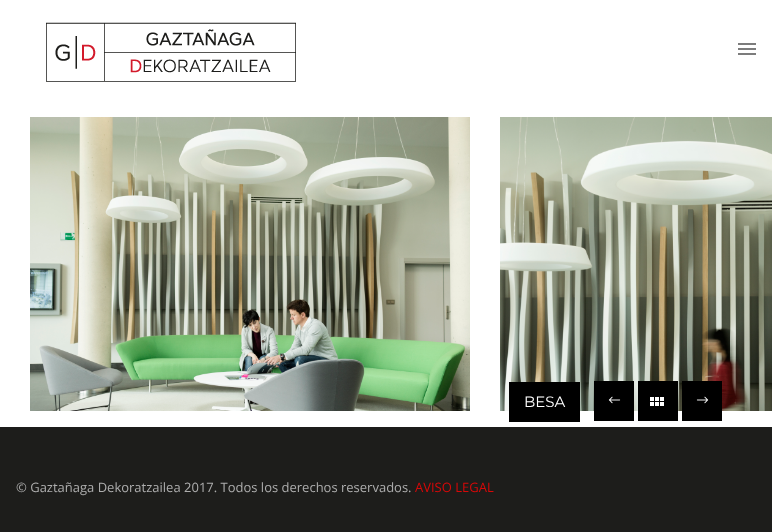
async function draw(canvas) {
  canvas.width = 772;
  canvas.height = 532;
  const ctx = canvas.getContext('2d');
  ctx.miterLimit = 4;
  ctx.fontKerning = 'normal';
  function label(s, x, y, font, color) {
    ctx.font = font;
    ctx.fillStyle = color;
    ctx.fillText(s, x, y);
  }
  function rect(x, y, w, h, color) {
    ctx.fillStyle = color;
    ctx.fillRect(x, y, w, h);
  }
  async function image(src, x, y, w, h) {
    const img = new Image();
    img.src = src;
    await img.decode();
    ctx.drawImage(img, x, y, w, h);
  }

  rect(0, 0, 772, 532, '#fff');
  await image('assets/img1.png', 46, 22, 250, 60);
  rect(738, 43, 18, 2, '#7c7c7c');
  rect(738, 48, 18, 2, '#7c7c7c');
  rect(738, 53, 18, 2, '#7c7c7c');
  await image('assets/img2.png', 30, 117, 440, 294);
  await image('assets/img3.png', 500, 117, 272, 294);
  rect(509, 382, 71, 40, '#000');
  label('BESA', 524, 407, '15px Montserrat', '#fff');
  rect(594, 381, 40, 40, '#000');
  await image('assets/img4.png', 608, 396, 13, 8);
  rect(638, 381, 40, 40, '#000');
  rect(650, 397, 4, 4, '#fff');
  rect(655, 397, 4, 4, '#fff');
  rect(660, 397, 4, 4, '#fff');
  rect(650, 402, 4, 4, '#fff');
  rect(655, 402, 4, 4, '#fff');
  rect(660, 402, 4, 4, '#fff');
  rect(682, 381, 40, 40, '#000');
  await image('assets/img5.png', 696, 396, 13, 8);
  rect(0, 427, 772, 105, '#1d1d1b');
  label('© Gaztañaga Dekoratzailea 2017. Todos los derechos reservados.', 16, 492, '13px Open Sans', '#adadad');
  label('AVISO LEGAL', 415, 492, '13px Open Sans', '#d80808');
}

draw(document.querySelector('canvas'));
